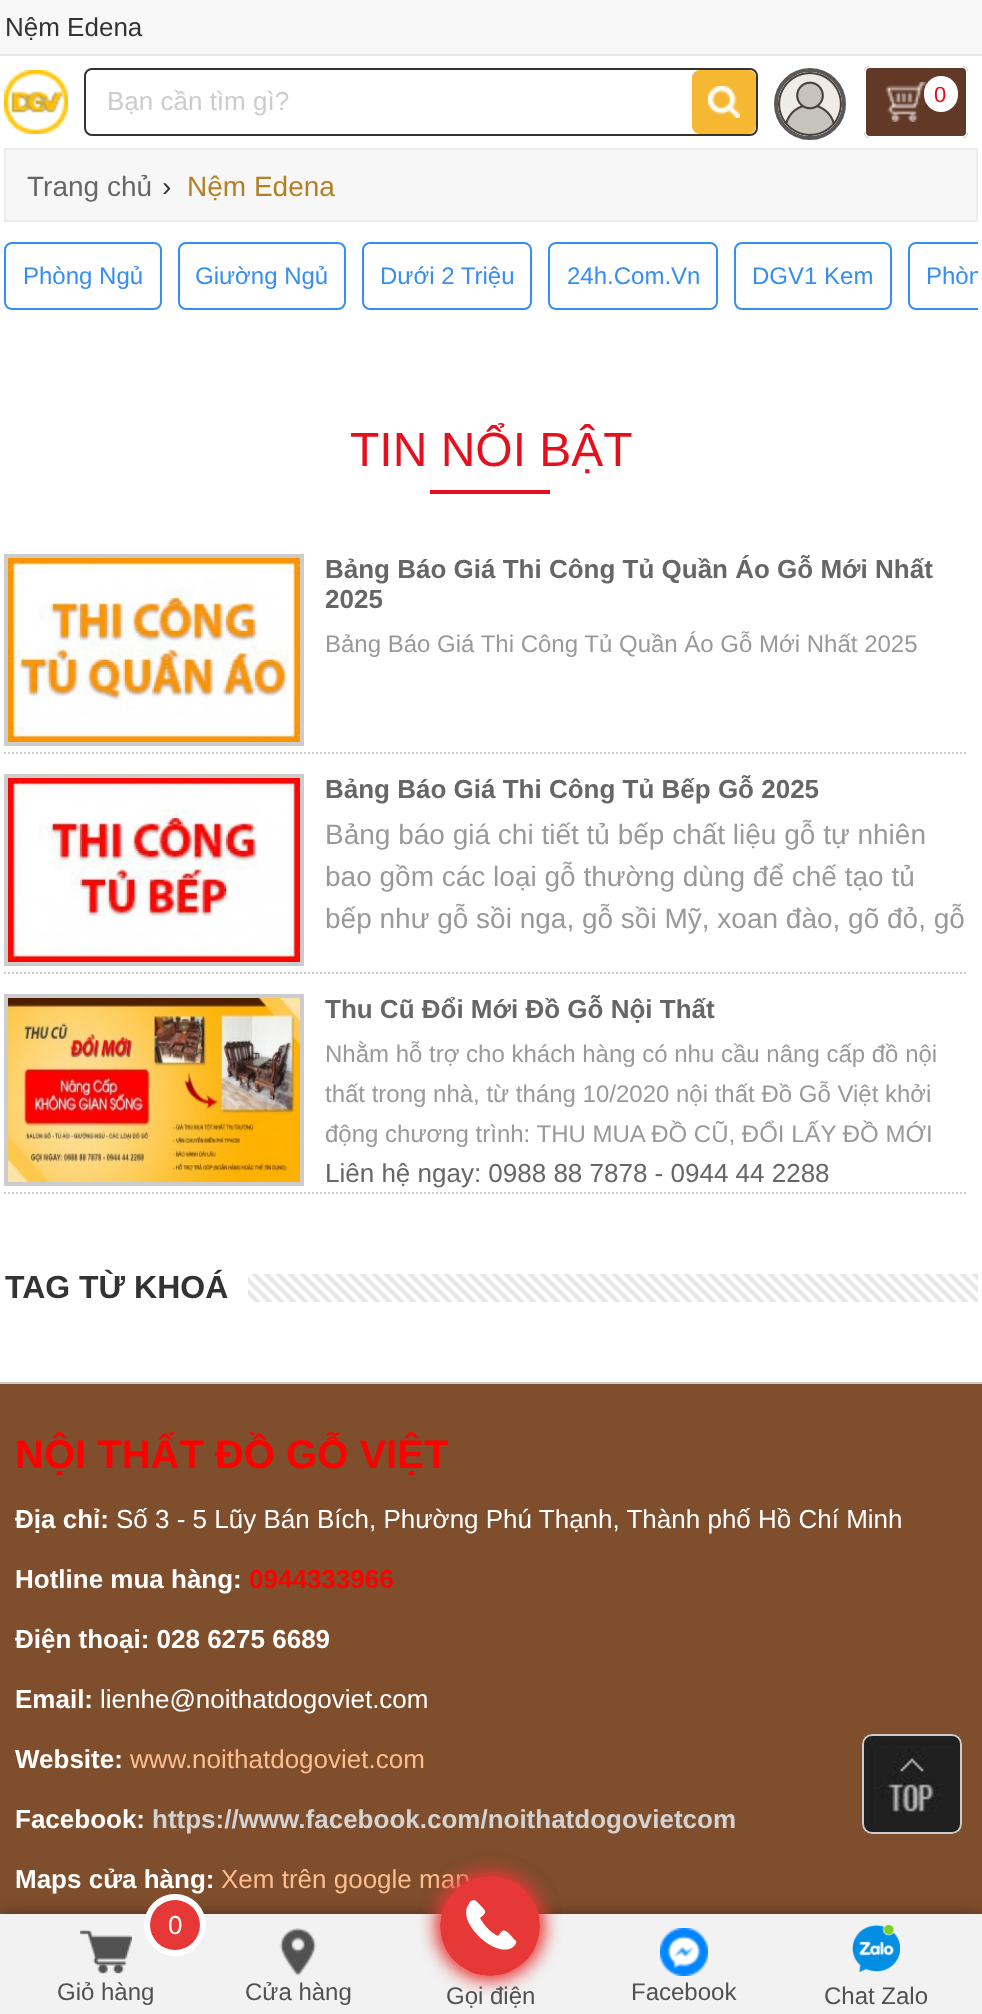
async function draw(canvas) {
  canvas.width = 982;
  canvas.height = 2014;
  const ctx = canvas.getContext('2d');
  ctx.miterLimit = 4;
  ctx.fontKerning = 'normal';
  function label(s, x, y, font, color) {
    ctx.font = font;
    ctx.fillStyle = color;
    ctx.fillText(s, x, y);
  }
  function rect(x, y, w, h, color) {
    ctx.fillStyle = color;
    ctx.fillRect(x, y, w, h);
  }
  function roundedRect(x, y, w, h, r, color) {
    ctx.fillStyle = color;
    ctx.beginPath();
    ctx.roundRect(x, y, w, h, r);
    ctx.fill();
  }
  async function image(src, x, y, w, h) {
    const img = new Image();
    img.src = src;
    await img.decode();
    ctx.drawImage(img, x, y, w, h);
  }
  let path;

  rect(0, 0, 982, 2014, '#fff');
  rect(0, 0, 982, 54, '#f8f8f8');
  rect(0, 54, 982, 2, '#e9e9e9');
  label('Nệm Edena', 5, 36, '26px Liberation Sans', '#333');
  await image('assets/img1.png', 4, 70, 64, 64);
  ctx.beginPath();
  ctx.roundRect(85, 69, 672, 66, 7);
  ctx.strokeStyle = '#333';
  ctx.lineWidth = 2;
  ctx.stroke();
  label('Bạn cần tìm gì?', 107, 110, '26px Liberation Sans', '#ccc');
  roundedRect(692, 70, 64, 64, 8, '#f6b833');
  await image('assets/img2.png', 708, 86, 32, 32);
  ctx.beginPath();
  ctx.arc(810, 104, 34, 0, 2 * Math.PI);
  ctx.strokeStyle = '#585859';
  ctx.lineWidth = 4;
  ctx.stroke();
  await image('assets/img3.png', 778, 72, 64, 64);
  roundedRect(864, 66, 104, 72, 6, '#623827');
  await image('assets/img4.png', 886, 82, 40, 40);
  ctx.beginPath();
  ctx.roundRect(865, 67, 102, 70, 5);
  ctx.strokeStyle = '#fff';
  ctx.lineWidth = 2;
  ctx.stroke();
  roundedRect(924, 76, 34, 36, 17, '#fff');
  label('0', 934, 102, '22px Liberation Sans', '#e5101d');
  ctx.fillStyle = '#f7f7f7';
  ctx.beginPath();
  ctx.rect(5, 149, 972, 72);
  ctx.fill();
  ctx.strokeStyle = '#ececec';
  ctx.stroke();
  label('Trang chủ', 27, 196, '28px Liberation Sans', '#666');
  label('›', 162, 196, '28px Liberation Sans', '#333');
  label('Nệm Edena', 187, 196, '28px Liberation Sans', '#b58023');
  ctx.beginPath();
  ctx.roundRect(5, 243, 156, 66, 7);
  ctx.strokeStyle = '#368df2';
  ctx.stroke();
  label('Phòng Ngủ', 23, 284, '24px Liberation Sans', '#368df2');
  ctx.beginPath();
  ctx.roundRect(179, 243, 166, 66, 7);
  ctx.stroke();
  label('Giường Ngủ', 195, 284, '24px Liberation Sans', '#368df2');
  ctx.beginPath();
  ctx.roundRect(363, 243, 168, 66, 7);
  ctx.stroke();
  label('Dưới 2 Triệu', 380, 284, '24px Liberation Sans', '#368df2');
  ctx.beginPath();
  ctx.roundRect(549, 243, 168, 66, 7);
  ctx.stroke();
  label('24h.Com.Vn', 567, 284, '24px Liberation Sans', '#368df2');
  ctx.beginPath();
  ctx.roundRect(735, 243, 156, 66, 7);
  ctx.stroke();
  label('DGV1 Kem', 752, 284, '24px Liberation Sans', '#368df2');
  ctx.save();
  ctx.beginPath();
  ctx.rect(4, 242, 974, 88);
  ctx.clip();
  ctx.beginPath();
  ctx.roundRect(909, 243, 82, 66, 7);
  ctx.stroke();
  label('Phòn', 926, 284, '24px Liberation Sans', '#368df2');
  ctx.restore();
  label('TIN NỔI BẬT', 350, 466, '48px Liberation Sans', '#e5101d');
  rect(430, 490, 120, 4, '#e60f1e');
  path = new Path2D('M4 753H968');
  ctx.strokeStyle = '#ccc';
  ctx.setLineDash([2, 2]);
  ctx.stroke(path);
  ctx.lineWidth = 4;
  ctx.setLineDash([]);
  ctx.strokeRect(6, 556, 296, 188);
  await image('assets/img5.png', 8, 558, 292, 184);
  label('Bảng Báo Giá Thi Công Tủ Quần Áo Gỗ Mới Nhất', 325, 578, 'bold 26px Liberation Sans', '#666');
  label('2025', 325, 608, 'bold 26px Liberation Sans', '#666');
  label('Bảng Báo Giá Thi Công Tủ Quần Áo Gỗ Mới Nhất 2025', 325, 652, '24px Liberation Sans', '#999');
  path = new Path2D('M4 973H968');
  ctx.lineWidth = 2;
  ctx.setLineDash([2, 2]);
  ctx.stroke(path);
  ctx.lineWidth = 4;
  ctx.setLineDash([]);
  ctx.strokeRect(6, 776, 296, 188);
  await image('assets/img6.png', 8, 778, 292, 184);
  label('Bảng Báo Giá Thi Công Tủ Bếp Gỗ 2025', 325, 798, 'bold 26px Liberation Sans', '#666');
  label('Bảng báo giá chi tiết tủ bếp chất liệu gỗ tự nhiên', 325, 844, '28px Liberation Sans', '#999');
  label('bao gồm các loại gỗ thường dùng để chế tạo tủ', 325, 886, '28px Liberation Sans', '#999');
  label('bếp như gỗ sồi nga, gỗ sồi Mỹ, xoan đào, gõ đỏ, gỗ', 325, 928, '28px Liberation Sans', '#999');
  path = new Path2D('M4 1193H968');
  ctx.lineWidth = 2;
  ctx.setLineDash([2, 2]);
  ctx.stroke(path);
  ctx.lineWidth = 4;
  ctx.setLineDash([]);
  ctx.strokeRect(6, 996, 296, 188);
  await image('assets/img7.png', 8, 998, 292, 184);
  label('Thu Cũ Đổi Mới Đồ Gỗ Nội Thất', 325, 1018, 'bold 26px Liberation Sans', '#666');
  label('Nhằm hỗ trợ cho khách hàng có nhu cầu nâng cấp đồ nội', 325, 1062, '24px Liberation Sans', '#999');
  label('thất trong nhà, từ tháng 10/2020 nội thất Đồ Gỗ Việt khởi', 325, 1102, '24px Liberation Sans', '#999');
  label('động chương trình: THU MUA ĐỒ CŨ, ĐỔI LẤY ĐỒ MỚI', 325, 1142, '24px Liberation Sans', '#999');
  label('Liên hệ ngay: 0988 88 7878 - 0944 44 2288', 325, 1182, '26px Liberation Sans', '#666');
  label('TAG TỪ KHOÁ', 5, 1298, 'bold 32px Liberation Sans', '#333');
  await image('assets/img8.png', 248, 1274, 730, 28);
  rect(0, 1384, 982, 530, '#7f4e2d');
  rect(0, 1382, 982, 2, '#ccc');
  label('NỘI THẤT ĐỒ GỖ VIỆT', 15, 1468, 'bold 40px Liberation Sans', '#f00');
  label('Địa chỉ:', 15, 1528, 'bold 26px Liberation Sans', '#fff');
  label('Số 3 - 5 Lũy Bán Bích, Phường Phú Thạnh, Thành phố Hồ Chí Minh', 116, 1528, '26px Liberation Sans', '#fff');
  label('Hotline mua hàng:', 15, 1588, 'bold 26px Liberation Sans', '#fff');
  label('0944333966', 249, 1588, 'bold 26px Liberation Sans', '#f00');
  label('Điện thoại: 028 6275 6689', 15, 1648, 'bold 26px Liberation Sans', '#fff');
  label('Email:', 15, 1708, 'bold 26px Liberation Sans', '#fff');
  label('lienhe@noithatdogoviet.com', 100, 1708, '26px Liberation Sans', '#fff');
  label('Website:', 15, 1768, 'bold 26px Liberation Sans', '#fff');
  label('www.noithatdogoviet.com', 130, 1768, '26px Liberation Sans', '#ffbd90');
  label('Facebook:', 15, 1828, 'bold 26px Liberation Sans', '#fff');
  label('https://www.facebook.com/noithatdogovietcom', 152, 1828, 'bold 26px Liberation Sans', '#d3d3d3');
  label('Maps cửa hàng:', 15, 1888, 'bold 26px Liberation Sans', '#fff');
  label('Xem trên google map', 221, 1888, '26px Liberation Sans', '#ffbd90');
  await image('assets/img9.png', 862, 1734, 100, 100);
  ctx.beginPath();
  ctx.roundRect(863, 1735, 98, 98, 9);
  ctx.lineWidth = 2;
  ctx.stroke();
  ctx.fillStyle = '#000';
  ctx.filter = 'blur(10px)';
  ctx.beginPath();
  ctx.rect(0, 1922, 982, 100);
  ctx.fill();
  ctx.filter = 'none';
  rect(0, 1914, 982, 100, '#f2f2f2');
  ctx.fillStyle = '#fff';
  ctx.beginPath();
  ctx.arc(175, 1925, 31, 0, 2 * Math.PI);
  ctx.fill();
  ctx.fillStyle = '#e73838';
  ctx.beginPath();
  ctx.arc(175, 1925, 25, 0, 2 * Math.PI);
  ctx.fill();
  label('0', 168, 1934, '26px Liberation Sans', '#fff');
  await image('assets/img10.png', 80, 1929, 52, 45);
  label('Giỏ hàng', 57, 2000, '24px Liberation Sans', '#515151');
  await image('assets/img11.png', 279, 1928, 38, 48);
  label('Cửa hàng', 245, 2000, '24px Liberation Sans', '#515151');
  ctx.fillStyle = '#e73838';
  ctx.beginPath();
  ctx.arc(490, 1926, 50, 0, 2 * Math.PI);
  ctx.fill();
  ctx.fillStyle = '#fff';
  path = new Path2D('M515 1940C512 1937 506 1928 502 1931L498 1936C490 1932 485 1926 480 1918C487 1912 487 1912 480 1905C475 1900 474 1898 469 1903V1904C455 1921 496 1960 513 1947C515 1945 518 1942 515 1940Z');
  ctx.fill(path);
  ctx.save();
  path = new Path2D('M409 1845H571V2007H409ZM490 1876C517.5 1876 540 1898.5 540 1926C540 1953.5 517.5 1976 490 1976C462.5 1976 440 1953.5 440 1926C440 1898.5 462.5 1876 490 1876Z');
  ctx.clip(path, 'evenodd');
  ctx.fillStyle = '#e73838';
  ctx.filter = 'blur(10px)';
  ctx.beginPath();
  ctx.roundRect(440, 1876, 100, 100, 50);
  ctx.fill();
  ctx.filter = 'none';
  ctx.filter = 'blur(10px)';
  ctx.beginPath();
  ctx.roundRect(440, 1876, 100, 100, 50);
  ctx.fill();
  ctx.filter = 'none';
  ctx.restore();
  label('Gọi điện', 446, 2004, '24px Liberation Sans', '#515151');
  await image('assets/img12.png', 660, 1928, 48, 48);
  label('Facebook', 631, 2000, '24px Liberation Sans', '#515151');
  await image('assets/img13.png', 852, 1924, 48, 48);
  label('Chat Zalo', 824, 2004, '24px Liberation Sans', '#515151');
}

draw(document.querySelector('canvas'));
